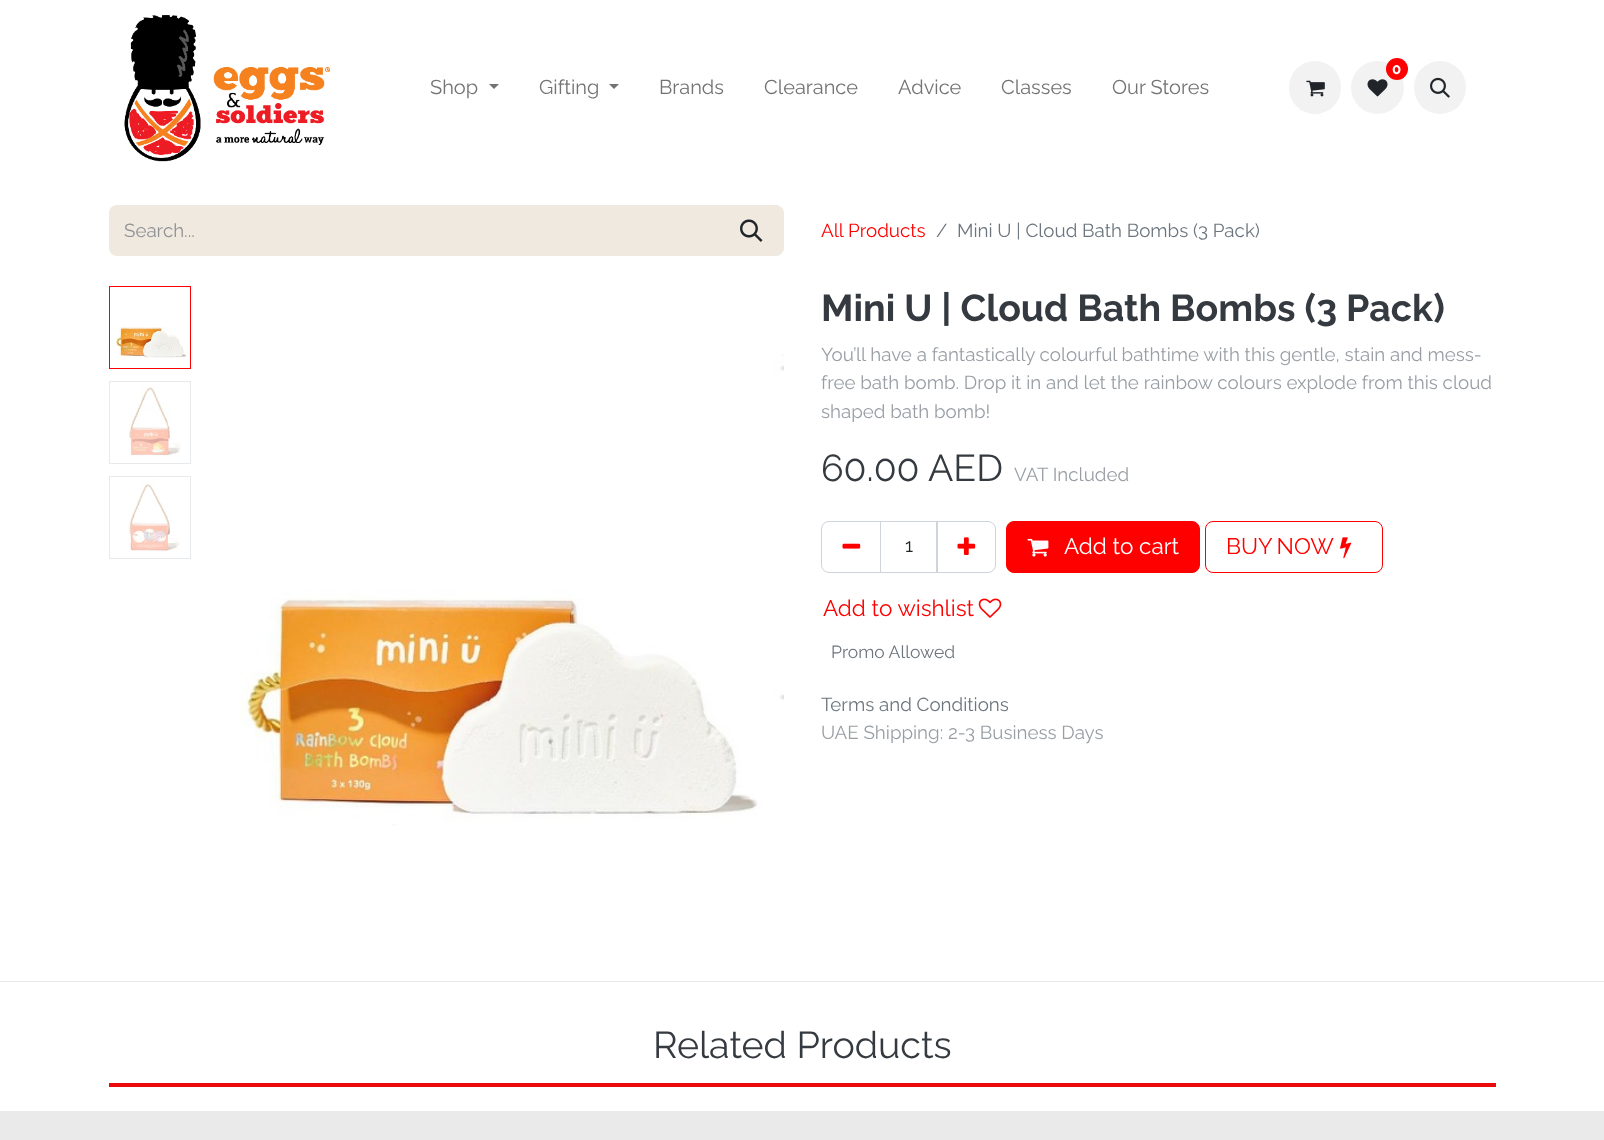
async function draw(canvas) {
  canvas.width = 1604;
  canvas.height = 1140;
  const ctx = canvas.getContext('2d');
  ctx.miterLimit = 4;
  ctx.fontKerning = 'normal';
  function label(s, x, y, font, color) {
    ctx.font = font;
    ctx.fillStyle = color;
    ctx.fillText(s, x, y);
  }
  function rect(x, y, w, h, color) {
    ctx.fillStyle = color;
    ctx.fillRect(x, y, w, h);
  }
  function roundedRect(x, y, w, h, r, color) {
    ctx.fillStyle = color;
    ctx.beginPath();
    ctx.roundRect(x, y, w, h, r);
    ctx.fill();
  }
  async function image(src, x, y, w, h) {
    const img = new Image();
    img.src = src;
    await img.decode();
    ctx.drawImage(img, x, y, w, h);
  }
  let path;

  rect(0, 0, 1604, 1140, '#fff');
  await image('assets/img1.png', 124, 15, 207, 147);
  roundedRect(1289, 61, 52, 53, 26, '#f2f2f2');
  await image('assets/img2.png', 1306, 80, 19, 17);
  ctx.beginPath();
  ctx.arc(1377.5, 87.5, 26.5, 0, 2 * Math.PI);
  ctx.fill();
  await image('assets/img3.png', 1367, 79, 21, 18);
  ctx.fillStyle = '#f00';
  ctx.beginPath();
  ctx.arc(1397, 69, 11, 0, 2 * Math.PI);
  ctx.fill();
  label('0', 1392, 74, 'bold 15px Raleway', '#fff');
  roundedRect(1414, 61, 52, 53, 26, '#f2f2f2');
  await image('assets/img4.png', 1430, 77, 20, 21);
  label('Shop', 430, 94, '20px Raleway', '#737373');
  path = new Path2D('M489 84H499L494 89Z');
  ctx.fill(path);
  label('Gifting', 539, 94, '20px Raleway', '#737373');
  path = new Path2D('M609 84H619L614 89Z');
  ctx.fill(path);
  label('Brands', 659, 94, '20px Raleway', '#737373');
  label('Clearance', 764, 94, '20px Raleway', '#737373');
  label('Advice', 898, 94, '20px Raleway', '#737373');
  label('Classes', 1001, 94, '20px Raleway', '#737373');
  label('Our Stores', 1112, 94, '20px Raleway', '#737373');
  ctx.fillStyle = '#efe9e0';
  ctx.beginPath();
  ctx.roundRect(109, 205, 611, 51, [8, 0, 0, 8]);
  ctx.fill();
  label('Search...', 124, 237, '18.75px Raleway', '#909294');
  ctx.fillStyle = '#efe9e0';
  ctx.beginPath();
  ctx.roundRect(719.5, 205.5, 64, 50, [0, 7.5, 7.5, 0]);
  ctx.fill();
  ctx.strokeStyle = '#efe9e0';
  ctx.stroke();
  await image('assets/img5.png', 740, 219, 23, 23);
  label('All Products', 821, 237, '18.75px Raleway', '#f00');
  label('/', 936, 237, '18.75px Raleway', '#6c757d');
  label('Mini U | Cloud Bath Bombs (3 Pack)', 957, 237, '18.75px Raleway', '#6c757d');
  ctx.strokeStyle = '#f00';
  ctx.strokeRect(109.5, 286.5, 81, 82);
  await image('assets/img6.png', 110, 327, 80, 31);
  ctx.strokeStyle = '#e7eaed';
  ctx.strokeRect(109.5, 381.5, 81, 82);
  await image('assets/img7.png', 128, 386, 53, 70);
  ctx.strokeRect(109.5, 476.5, 81, 82);
  await image('assets/img8.png', 128, 478, 52, 74);
  await image('assets/img9.png', 239, 354, 545, 472);
  label('Mini U | Cloud Bath Bombs (3 Pack)', 821, 321, 'bold 37.5px Raleway', '#343a40');
  label('You’ll have a fantastically colourful bathtime with this gentle, stain and mess-', 821, 361, '18.75px Raleway', '#989ea4');
  label('free bath bomb. Drop it in and let the rainbow colours explode from this cloud', 821, 389, '18.75px Raleway', '#989ea4');
  label('shaped bath bomb!', 821, 418, '18.75px Raleway', '#989ea4');
  label('60.00 AED', 821, 481, '37.5px Raleway', '#343a40');
  label('VAT Included', 1014, 481, '18.75px Raleway', '#989ea4');
  ctx.strokeStyle = '#ced4da';
  ctx.strokeRect(880.5, 521.5, 57, 51);
  ctx.beginPath();
  ctx.roundRect(821.5, 521.5, 59, 51, [7.5, 0, 0, 7.5]);
  ctx.stroke();
  await image('assets/img10.png', 842, 543, 19, 6);
  label('1', 905, 552, '18.75px Raleway', '#212529');
  ctx.beginPath();
  ctx.roundRect(936.5, 521.5, 59, 51, [0, 7.5, 7.5, 0]);
  ctx.stroke();
  await image('assets/img11.png', 957, 537, 19, 18);
  ctx.fillStyle = '#f00';
  ctx.beginPath();
  ctx.roundRect(1006.5, 521.5, 193, 51, 7.5);
  ctx.fill();
  ctx.strokeStyle = '#f00';
  ctx.stroke();
  await image('assets/img12.png', 1027, 538, 22, 19);
  label('Add to cart', 1064, 554, '22.5px Raleway', '#fff');
  ctx.beginPath();
  ctx.roundRect(1205.5, 521.5, 177, 51, 7.5);
  ctx.stroke();
  ctx.wordSpacing = '-1px';
  label('BUY NOW', 1226, 554, '22.5px Raleway', '#f00');
  await image('assets/img13.png', 1340, 537, 12, 22);
  ctx.wordSpacing = '0px';
  label('Add to wishlist', 823, 616, '22.5px Raleway', '#f00');
  await image('assets/img14.png', 978, 598, 24, 20);
  label('Promo Allowed', 831, 658, '17.5px Raleway', '#6c757d');
  label('Terms and Conditions', 821, 711, '18.75px Raleway', '#6c757d');
  label('UAE Shipping: 2-3 Business Days', 821, 739, '18.75px Raleway', '#989ea4');
  rect(0, 981, 1604, 1, '#e9eaec');
  label('Related Products', 653, 1058, '37.5px Raleway', '#343a40');
  rect(109, 1083, 1387, 4, '#eb0a0a');
  rect(0, 1111, 1604, 29, '#eaeaea');
}

draw(document.querySelector('canvas'));
